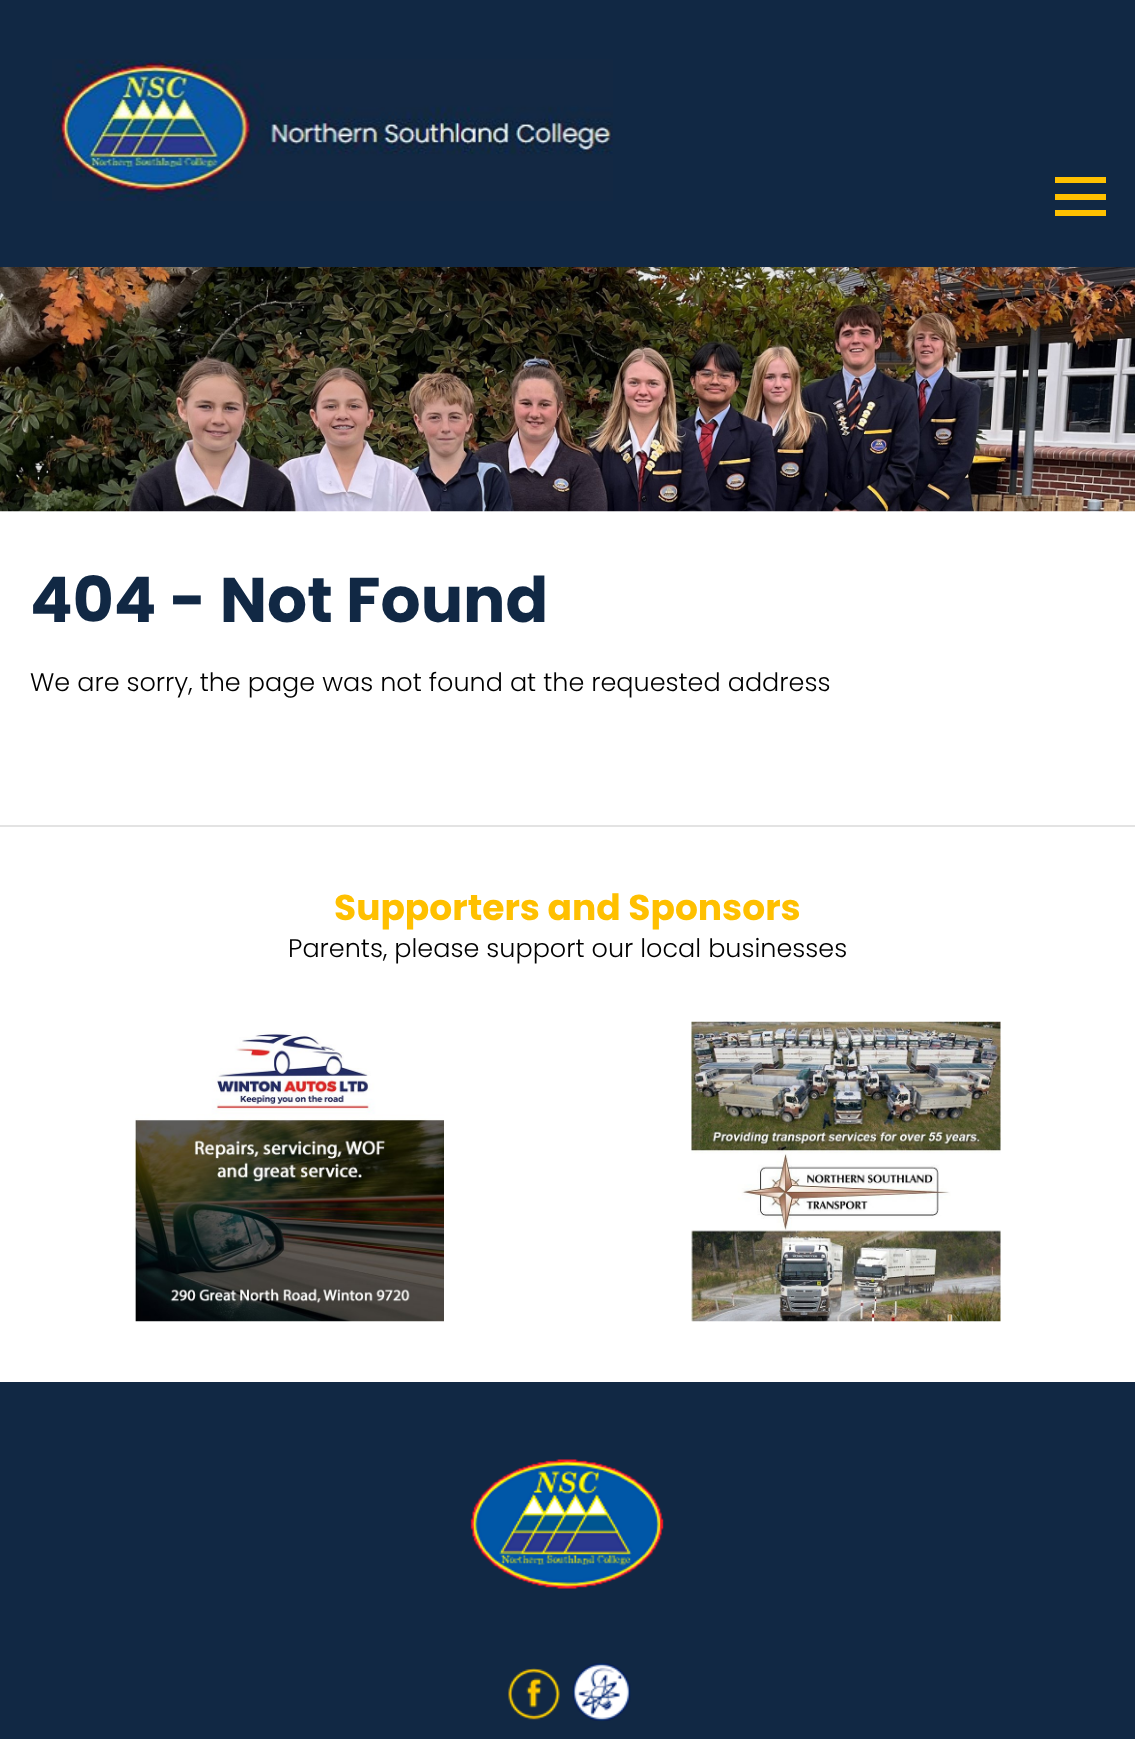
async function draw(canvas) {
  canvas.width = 1135;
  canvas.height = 1739;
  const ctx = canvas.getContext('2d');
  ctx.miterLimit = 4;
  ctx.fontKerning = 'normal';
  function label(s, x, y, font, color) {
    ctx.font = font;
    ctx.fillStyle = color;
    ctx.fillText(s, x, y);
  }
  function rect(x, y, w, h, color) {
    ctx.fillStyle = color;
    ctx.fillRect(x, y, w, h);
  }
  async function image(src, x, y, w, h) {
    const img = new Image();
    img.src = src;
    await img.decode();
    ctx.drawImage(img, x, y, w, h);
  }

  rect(0, 0, 1135, 1739, '#fff');
  await image('assets/img2.png', 0, 267, 1135, 245);
  ctx.fillStyle = '#00000033';
  ctx.filter = 'blur(11px)';
  ctx.beginPath();
  ctx.rect(0, 3, 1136, 267);
  ctx.fill();
  ctx.filter = 'none';
  rect(0, 0, 1135, 267, '#112844');
  await image('assets/img1.png', 52, 59, 561, 142);
  rect(1055, 177, 51, 6, '#ffc000');
  rect(1055, 194, 51, 6, '#ffc000');
  rect(1055, 210, 51, 6, '#ffc000');
  label('404 - Not Found', 30, 622, 'bold 63px Poppins', '#112844');
  label('We are sorry, the page was not found at the requested address', 30, 691, '300 25.5px Poppins', '#000');
  rect(0, 825, 1135, 2, '#e3e3e3');
  label('Supporters and Sponsors', 334, 920, 'bold 36px Poppins', '#ffc000');
  label('Parents, please support our local businesses', 288, 957, '300 25.5px Poppins', '#000');
  await image('assets/img3.png', 135, 1031, 309, 291);
  await image('assets/img4.png', 691, 1021, 310, 301);
  rect(0, 1382, 1135, 357, '#112844');
  await image('assets/img5.png', 470, 1459, 194, 130);
  await image('assets/img6.png', 508, 1668, 52, 52);
  await image('assets/img7.png', 572, 1663, 59, 58);
}

draw(document.querySelector('canvas'));
